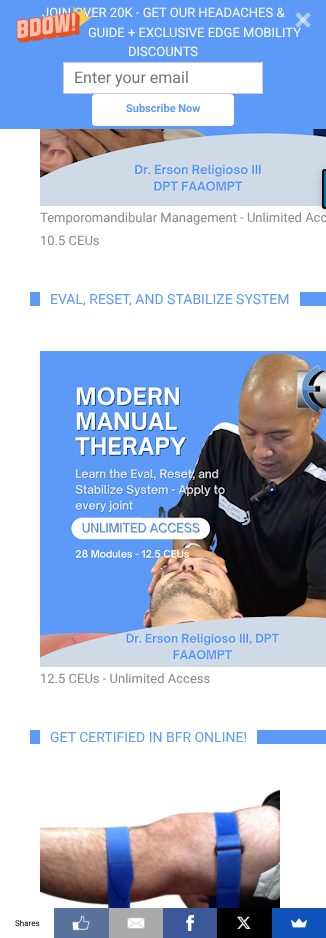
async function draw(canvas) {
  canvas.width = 326;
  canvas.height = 938;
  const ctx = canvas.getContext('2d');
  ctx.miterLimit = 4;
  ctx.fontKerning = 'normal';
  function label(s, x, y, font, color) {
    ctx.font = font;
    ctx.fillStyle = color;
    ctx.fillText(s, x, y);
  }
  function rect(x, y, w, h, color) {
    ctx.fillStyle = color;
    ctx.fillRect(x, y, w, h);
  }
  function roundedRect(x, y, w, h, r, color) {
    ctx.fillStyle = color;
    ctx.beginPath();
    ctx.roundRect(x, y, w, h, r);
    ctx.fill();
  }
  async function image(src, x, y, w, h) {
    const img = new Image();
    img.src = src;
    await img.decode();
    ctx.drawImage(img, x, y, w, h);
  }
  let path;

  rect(0, 0, 326, 938, '#fff');
  rect(0, 0, 326, 129, '#5d9af8');
  label('JOIN OVER 20K - GET OUR HEADACHES &', 42, 17, '13px Roboto', '#fff');
  label('GUIDE + EXCLUSIVE EDGE MOBILITY', 88, 37, '13px Roboto', '#fff');
  await image('assets/img1.png', 16, 6, 78, 37);
  label('DISCOUNTS', 128, 56, '13px Roboto', '#fff');
  await image('assets/img2.png', 295, 12, 16, 16);
  ctx.beginPath();
  ctx.rect(63.5, 62.5, 199, 31);
  ctx.fill();
  ctx.strokeStyle = '#ccc';
  ctx.stroke();
  label('Enter your email', 74, 83, '16px Roboto', '#757575');
  roundedRect(92, 94, 142, 32, 4, '#fff');
  label('Subscribe Now', 126, 112, 'bold 11px Roboto', '#5d9af8');
  await image('assets/img3.png', 40, 129, 286, 77);
  ctx.fillStyle = '#00000033';
  ctx.filter = 'blur(5px)';
  ctx.beginPath();
  ctx.roundRect(322, 173, 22, 40, 3);
  ctx.fill();
  ctx.filter = 'none';
  ctx.fillStyle = '#0073b7';
  path = new Path2D('M325 170H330V208H325C324 208 323 207 323 206V172C323 171 324 170 325 170Z');
  ctx.fill(path);
  ctx.strokeStyle = '#000';
  ctx.lineWidth = 2;
  ctx.stroke(path);
  label('Temporomandibular Management - Unlimited Acc', 40, 222, '13px Roboto', '#888');
  label('10.5 CEUs', 40, 245, '13px Roboto', '#888');
  rect(30, 292, 296, 14, '#5d9af8');
  rect(40, 292, 260, 14, '#fff');
  label('EVAL, RESET, AND STABILIZE SYSTEM', 50, 304, '14px Roboto', '#5d9af8');
  await image('assets/img4.png', 40, 351, 286, 316);
  label('12.5 CEUs - Unlimited Access', 40, 683, '13px Roboto', '#888');
  rect(30, 730, 296, 14, '#5d9af8');
  rect(40, 730, 217, 14, '#fff');
  label('GET CERTIFIED IN BFR ONLINE!', 50, 742, '14px Roboto', '#5d9af8');
  await image('assets/img5.png', 40, 789, 240, 119);
  label('Shares', 15, 926, '8px Roboto', '#000');
  rect(54, 908, 55, 30, '#5a739d');
  await image('assets/img6.png', 72, 915, 18, 16);
  rect(109, 908, 54, 30, '#aaa');
  await image('assets/img7.png', 127, 917, 18, 12);
  rect(163, 908, 54, 30, '#3b5998');
  await image('assets/img8.png', 186, 915, 8, 16);
  rect(217, 908, 55, 30, '#000');
  await image('assets/img9.png', 236, 916, 15, 13);
  rect(272, 908, 54, 30, '#0f52ba');
  await image('assets/img10.png', 291, 918, 16, 10);
}

draw(document.querySelector('canvas'));
